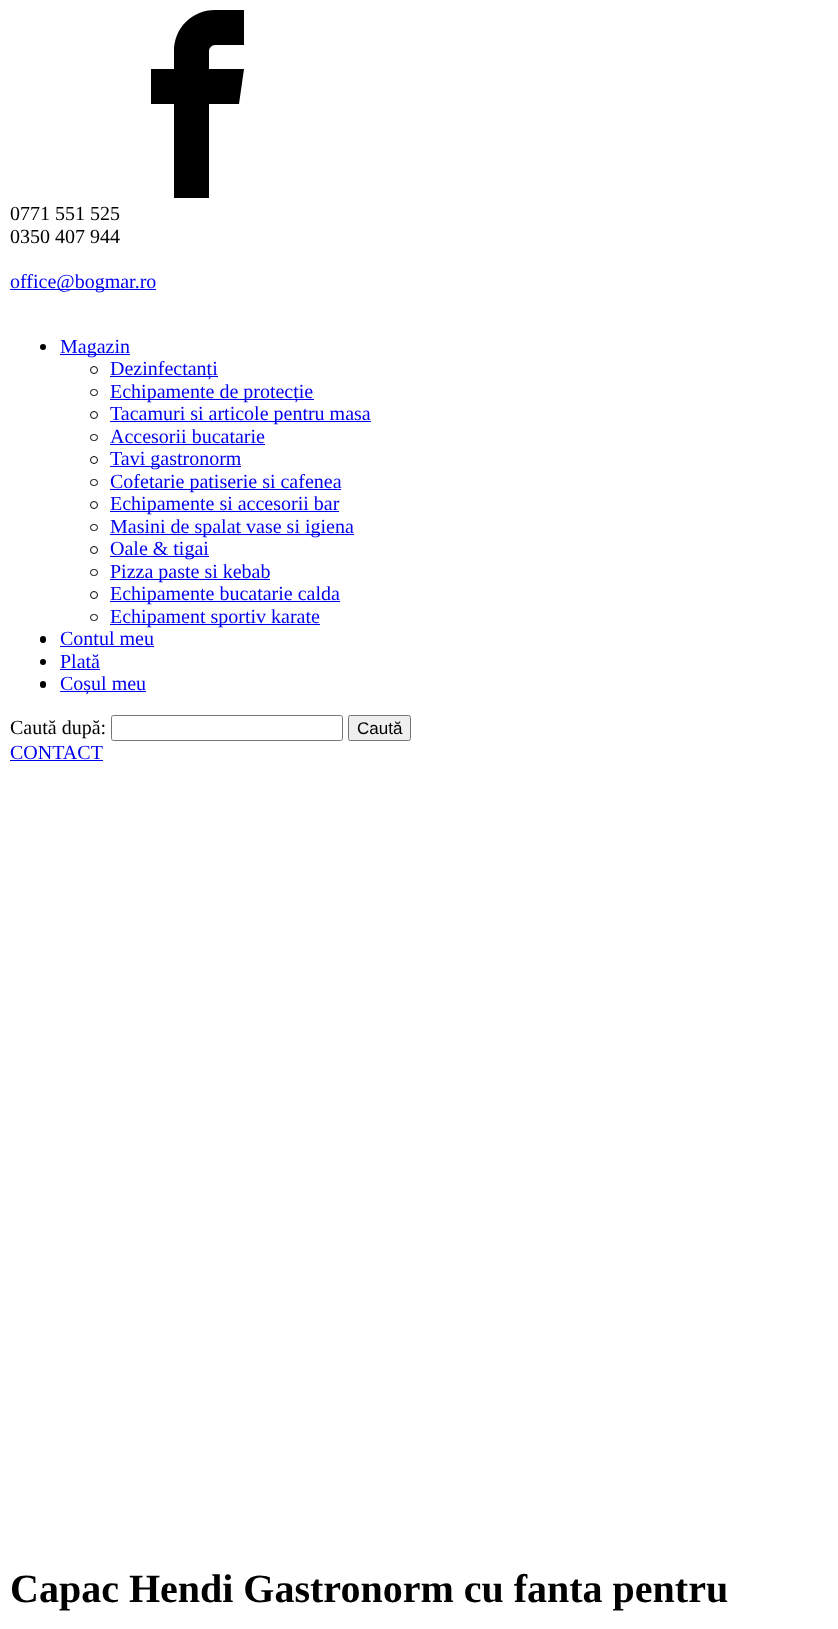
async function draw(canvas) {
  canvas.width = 838;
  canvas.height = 1629;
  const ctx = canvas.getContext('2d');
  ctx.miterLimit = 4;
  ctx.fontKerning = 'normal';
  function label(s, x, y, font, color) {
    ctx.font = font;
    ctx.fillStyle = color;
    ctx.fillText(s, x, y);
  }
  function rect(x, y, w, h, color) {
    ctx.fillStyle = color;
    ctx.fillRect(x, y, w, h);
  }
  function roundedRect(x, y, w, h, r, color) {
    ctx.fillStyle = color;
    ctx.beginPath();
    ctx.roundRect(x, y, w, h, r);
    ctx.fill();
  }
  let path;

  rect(0, 0, 838, 1629, '#fff');
  ctx.fillStyle = '#000';
  path = new Path2D('M215 45H244V10H215C192 10 174 28 174 51V69H151V104H174V198H209V104H239L244 69H209V51C209 48 212 45 215 45Z');
  ctx.fill(path);
  label('0771 551 525', 10, 220, '20px Liberation Serif', '#000');
  label('0350 407 944', 10, 243, '20px Liberation Serif', '#000');
  rect(10, 289, 146, 1, '#00e');
  label('office@bogmar.ro', 10, 288, '20px Liberation Serif', '#00e');
  ctx.fillStyle = '#000';
  ctx.beginPath();
  ctx.arc(43, 347, 3, 0, 2 * Math.PI);
  ctx.fill();
  rect(60, 354, 70, 1, '#00e');
  label('Magazin', 60, 353, '20px Liberation Serif', '#00e');
  ctx.beginPath();
  ctx.arc(94, 370, 3.5, 0, 2 * Math.PI);
  ctx.strokeStyle = '#000';
  ctx.stroke();
  rect(110, 376, 108, 1, '#00e');
  label('Dezinfectanți', 110, 375, '20px Liberation Serif', '#00e');
  ctx.beginPath();
  ctx.roundRect(90.5, 389.5, 7, 6, 3);
  ctx.stroke();
  rect(110, 399, 204, 1, '#00e');
  label('Echipamente de protecție', 110, 398, '20px Liberation Serif', '#00e');
  ctx.beginPath();
  ctx.arc(94, 415, 3.5, 0, 2 * Math.PI);
  ctx.stroke();
  rect(110, 421, 261, 1, '#00e');
  label('Tacamuri si articole pentru masa', 110, 420, '20px Liberation Serif', '#00e');
  ctx.beginPath();
  ctx.roundRect(90.5, 434.5, 7, 6, 3);
  ctx.stroke();
  label('Accesorii bucatarie', 110, 443, '20px Liberation Serif', '#00e');
  rect(110, 444, 155, 1, '#00e');
  ctx.beginPath();
  ctx.arc(94, 460, 3.5, 0, 2 * Math.PI);
  ctx.stroke();
  rect(110, 466, 131, 1, '#00e');
  label('Tavi gastronorm', 110, 465, '20px Liberation Serif', '#00e');
  ctx.beginPath();
  ctx.roundRect(90.5, 479.5, 7, 6, 3);
  ctx.stroke();
  rect(110, 489, 231, 1, '#00e');
  label('Cofetarie patiserie si cafenea', 110, 488, '20px Liberation Serif', '#00e');
  ctx.beginPath();
  ctx.arc(94, 505, 3.5, 0, 2 * Math.PI);
  ctx.stroke();
  rect(110, 511, 229, 1, '#00e');
  label('Echipamente si accesorii bar', 110, 510, '20px Liberation Serif', '#00e');
  ctx.beginPath();
  ctx.roundRect(90.5, 524.5, 7, 6, 3);
  ctx.stroke();
  rect(110, 534, 244, 1, '#00e');
  label('Masini de spalat vase si igiena', 110, 533, '20px Liberation Serif', '#00e');
  ctx.beginPath();
  ctx.arc(94, 550, 3.5, 0, 2 * Math.PI);
  ctx.stroke();
  rect(110, 556, 99, 1, '#00e');
  label('Oale & tigai', 110, 555, '20px Liberation Serif', '#00e');
  ctx.beginPath();
  ctx.roundRect(90.5, 569.5, 7, 6, 3);
  ctx.stroke();
  rect(110, 579, 160, 1, '#00e');
  label('Pizza paste si kebab', 110, 578, '20px Liberation Serif', '#00e');
  ctx.beginPath();
  ctx.arc(94, 595, 3.5, 0, 2 * Math.PI);
  ctx.stroke();
  rect(110, 601, 230, 1, '#00e');
  label('Echipamente bucatarie calda', 110, 600, '20px Liberation Serif', '#00e');
  ctx.beginPath();
  ctx.roundRect(90.5, 614.5, 7, 6, 3);
  ctx.stroke();
  rect(110, 624, 210, 1, '#00e');
  label('Echipament sportiv karate', 110, 623, '20px Liberation Serif', '#00e');
  roundedRect(40, 636, 6, 7, 3, '#000');
  label('Contul meu', 60, 645, '20px Liberation Serif', '#00e');
  rect(60, 646, 94, 1, '#00e');
  ctx.fillStyle = '#000';
  ctx.beginPath();
  ctx.arc(43, 662, 3, 0, 2 * Math.PI);
  ctx.fill();
  label('Plată', 60, 668, '20px Liberation Serif', '#00e');
  rect(60, 669, 40, 1, '#00e');
  roundedRect(40, 681, 6, 7, 3, '#000');
  rect(60, 691, 86, 1, '#00e');
  label('Coșul meu', 60, 690, '20px Liberation Serif', '#00e');
  label('Caută după:', 10, 734, '20px Liberation Serif', '#000');
  ctx.beginPath();
  ctx.roundRect(111.5, 715.5, 231, 25, 2);
  ctx.strokeStyle = '#767676';
  ctx.stroke();
  ctx.fillStyle = '#efefef';
  ctx.beginPath();
  ctx.roundRect(348.5, 715.5, 62, 25, 2);
  ctx.fill();
  ctx.stroke();
  label('Caută', 357, 734, '17px Liberation Sans', '#000');
  label('CONTACT', 10, 759, '20px Liberation Serif', '#00e');
  rect(10, 760, 93, 1, '#00e');
  label('Capac Hendi Gastronorm cu fanta pentru', 10, 1602, 'bold 40px Liberation Serif', '#000');
}

draw(document.querySelector('canvas'));
